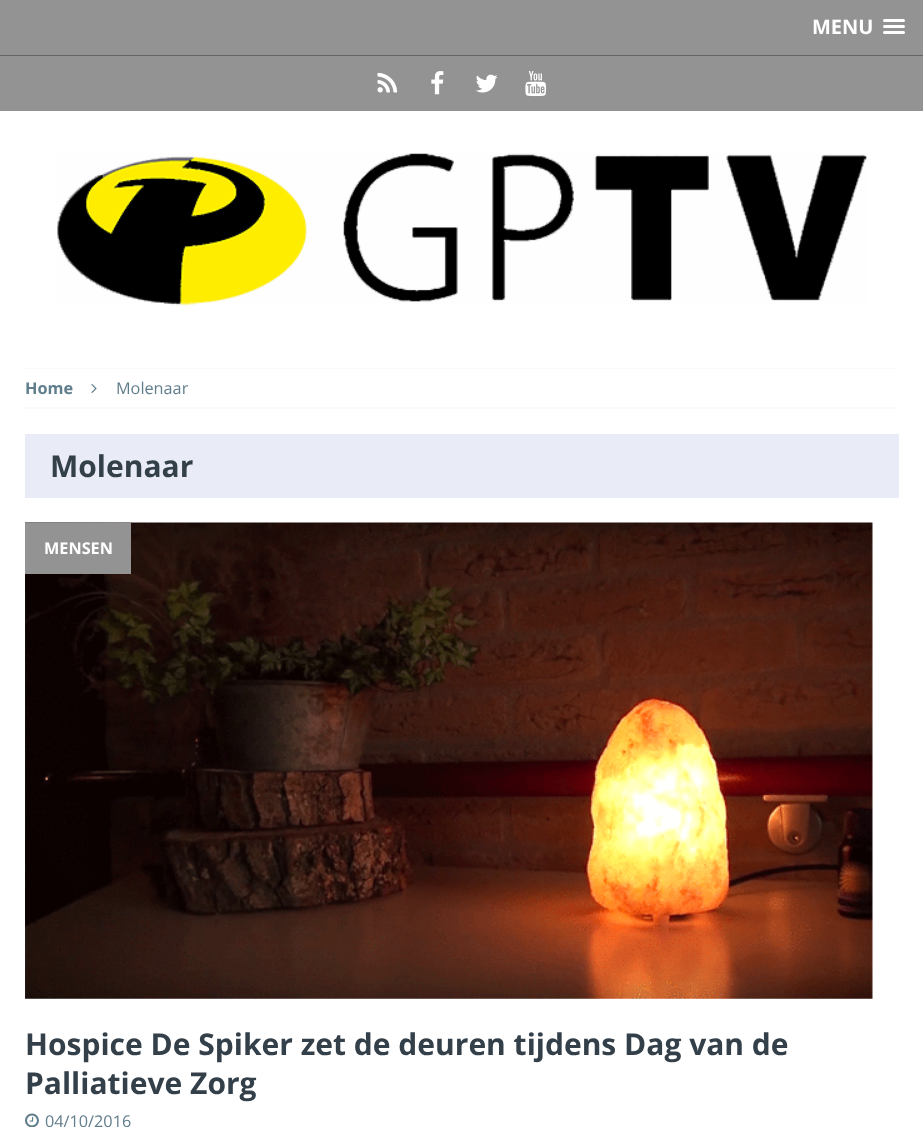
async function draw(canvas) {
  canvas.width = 923;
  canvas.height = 1127;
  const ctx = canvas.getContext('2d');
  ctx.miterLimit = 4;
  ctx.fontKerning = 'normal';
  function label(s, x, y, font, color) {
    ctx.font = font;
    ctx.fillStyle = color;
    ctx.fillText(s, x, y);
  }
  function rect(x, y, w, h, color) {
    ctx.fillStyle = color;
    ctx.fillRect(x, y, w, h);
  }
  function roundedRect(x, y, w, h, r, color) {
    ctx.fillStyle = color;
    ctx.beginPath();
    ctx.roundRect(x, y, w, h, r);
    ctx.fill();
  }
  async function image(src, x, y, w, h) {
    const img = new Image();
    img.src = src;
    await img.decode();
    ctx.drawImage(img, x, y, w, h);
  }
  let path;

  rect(0, 0, 923, 1127, '#939393');
  rect(0, 55, 923, 1, '#636363');
  label('MENU', 812, 34, 'bold 20px Open Sans', '#fff');
  roundedRect(883, 19, 22, 3, 1.5, '#fff');
  roundedRect(883, 25, 22, 3, 1.5, '#fff');
  roundedRect(883, 31, 22, 3, 1.5, '#fff');
  await image('assets/img1.png', 377, 72, 21, 21);
  await image('assets/img2.png', 431, 71, 13, 24);
  await image('assets/img3.png', 475, 74, 23, 19);
  await image('assets/img4.png', 525, 71, 22, 26);
  rect(0, 111, 923, 1016, '#fff');
  await image('assets/img5.png', 57, 153, 810, 153);
  ctx.save();
  ctx.beginPath();
  ctx.rect(25, 368, 874, 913);
  ctx.clip();
  path = new Path2D('M25 368H899');
  ctx.strokeStyle = '#ebebeb';
  ctx.lineWidth = 1.2;
  ctx.setLineDash([1.25, 1.25]);
  ctx.stroke(path);
  ctx.restore();
  path = new Path2D('M25 408H899');
  ctx.strokeStyle = '#ebebeb';
  ctx.lineWidth = 1.2;
  ctx.setLineDash([1.25, 1.25]);
  ctx.stroke(path);
  label('Home', 25, 394, 'bold 16.25px Open Sans', '#607d8b');
  await image('assets/img6.png', 91, 384, 6, 9);
  label('Molenaar', 116, 394, '16.25px Open Sans', '#607d8b');
  rect(25, 434, 874, 64, '#e9ecf6');
  label('Molenaar', 50, 477, 'bold 30px Open Sans', '#333f49');
  await image('assets/img7.png', 25, 522, 848, 477);
  rect(25, 523, 106, 51, '#939393');
  label('MENSEN', 44, 554, 'bold 16.25px Open Sans', '#fff');
  label('Hospice De Spiker zet de deuren tijdens Dag van de', 25, 1055, 'bold 30px Open Sans', '#333f49');
  label('Palliatieve Zorg', 25, 1094, 'bold 30px Open Sans', '#333f49');
  await image('assets/img8.png', 25, 1113, 14, 14);
  label('04/10/2016', 45, 1127, '16.25px Open Sans', '#607d8b');
}

draw(document.querySelector('canvas'));
